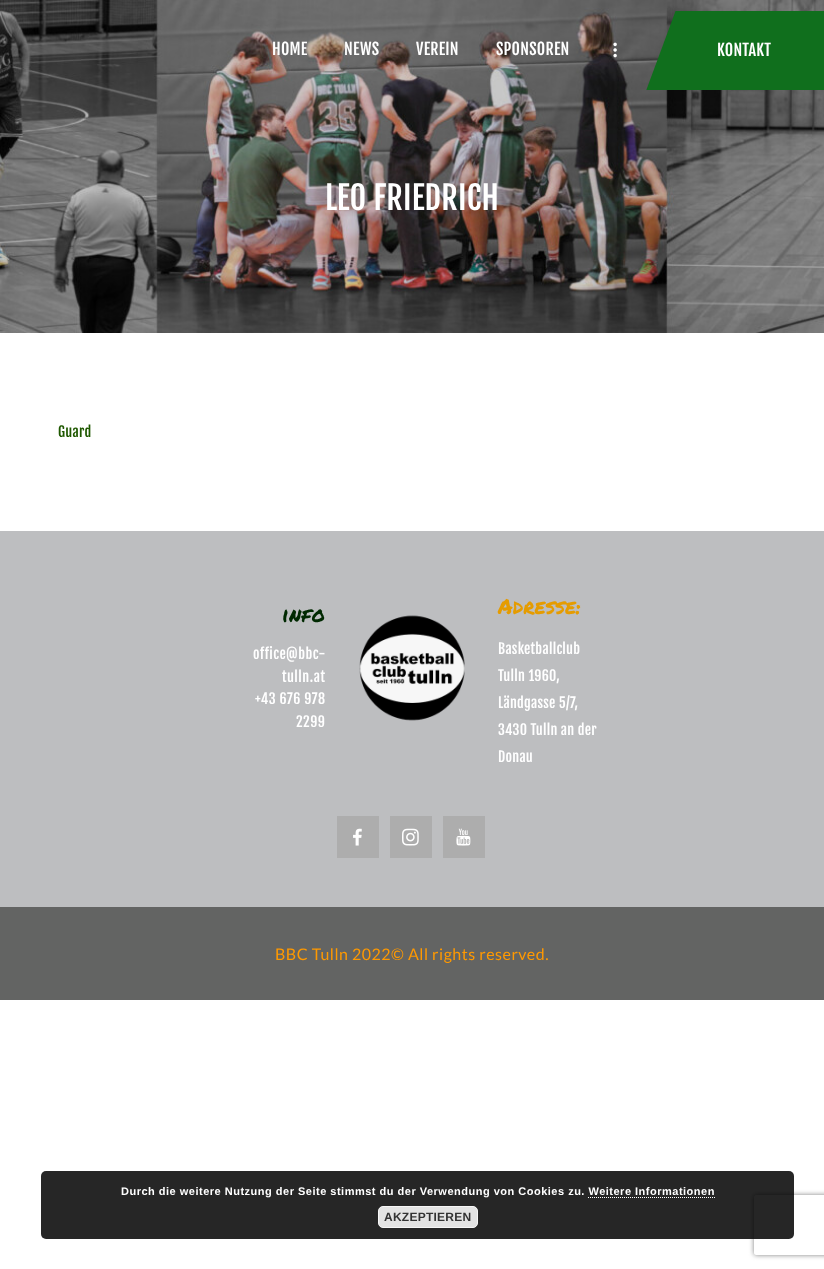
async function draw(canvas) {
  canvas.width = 824;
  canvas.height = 1269;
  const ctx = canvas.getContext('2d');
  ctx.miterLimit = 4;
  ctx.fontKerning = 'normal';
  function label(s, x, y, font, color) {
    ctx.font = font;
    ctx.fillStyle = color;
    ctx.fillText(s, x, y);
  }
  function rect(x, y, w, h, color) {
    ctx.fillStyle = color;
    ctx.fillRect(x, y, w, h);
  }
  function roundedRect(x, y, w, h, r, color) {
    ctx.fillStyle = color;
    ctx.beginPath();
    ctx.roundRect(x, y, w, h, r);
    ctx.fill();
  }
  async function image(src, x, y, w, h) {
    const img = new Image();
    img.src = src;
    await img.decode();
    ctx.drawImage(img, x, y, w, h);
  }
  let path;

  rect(0, 0, 824, 1269, '#fff');
  await image('assets/img1.png', 0, 0, 824, 333);
  ctx.letterSpacing = '0.25px';
  label('HOME', 272, 55, '16px Fjalla One', '#fff');
  label('NEWS', 344, 55, '16px Fjalla One', '#fff');
  label('VEREIN', 416, 55, '16px Fjalla One', '#fff');
  label('SPONSOREN', 496, 55, '16px Fjalla One', '#fff');
  await image('assets/img2.png', 613, 42, 4, 16);
  ctx.save();
  ctx.beginPath();
  ctx.rect(643, 11, 181, 79);
  ctx.clip();
  ctx.fillStyle = '#106f1d';
  path = new Path2D('M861 99H643L680-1H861Z');
  ctx.fill(path);
  ctx.restore();
  label('KONTAKT', 717, 56, '16px Fjalla One', '#fff');
  label('LEO FRIEDRICH', 325, 210, '32px Fjalla One', '#fff');
  label('Guard', 58, 437, '14px Fjalla One', '#1f5800');
  rect(0, 531, 824, 376, '#bdbec0');
  ctx.letterSpacing = '0.5px';
  label('info', 282, 622, '21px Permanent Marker', '#002901');
  label('office@bbc-', 253, 659, '14px Fjalla One', '#fff');
  label('tulln.at', 282, 682, '14px Fjalla One', '#fff');
  label('+43 676 978', 255, 704, '14px Fjalla One', '#fff');
  label('2299', 296, 727, '14px Fjalla One', '#fff');
  await image('assets/img3.png', 359, 615, 106, 106);
  ctx.letterSpacing = '0px';
  label('Adresse:', 498, 614, '21px Permanent Marker', '#e59c00');
  ctx.letterSpacing = '0.25px';
  label('Basketballclub', 498, 654, '14px Fjalla One', '#fff');
  label('Tulln 1960,', 498, 681, '14px Fjalla One', '#fff');
  label('Ländgasse 5/7,', 498, 708, '14px Fjalla One', '#fff');
  label('3430 Tulln an der', 498, 735, '14px Fjalla One', '#fff');
  label('Donau', 498, 762, '14px Fjalla One', '#fff');
  rect(337, 816, 42, 42, '#adadad');
  await image('assets/img4.png', 353, 828, 9, 18);
  rect(390, 816, 42, 42, '#adadad');
  await image('assets/img5.png', 402, 828, 17, 18);
  rect(443, 816, 42, 42, '#adadad');
  await image('assets/img6.png', 456, 828, 15, 18);
  rect(0, 907, 824, 93, '#636463');
  ctx.letterSpacing = '0.5px';
  label('BBC Tulln 2022© All rights reserved.', 275, 960, '16px Lato', '#f90');
  ctx.save();
  path = new Path2D('M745 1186H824V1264H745ZM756 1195H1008C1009 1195 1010 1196 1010 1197V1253C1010 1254 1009 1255 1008 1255H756C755 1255 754 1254 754 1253V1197C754 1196 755 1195 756 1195Z');
  ctx.clip(path, 'evenodd');
  ctx.fillStyle = '#808080';
  ctx.filter = 'blur(2.5px)';
  ctx.beginPath();
  ctx.roundRect(754, 1195, 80, 60, 2);
  ctx.fill();
  ctx.filter = 'none';
  ctx.restore();
  roundedRect(41, 1171, 753, 68, 5, '#000000d9');
  label('Durch die weitere Nutzung der Seite stimmst du der Verwendung von Cookies zu. Weitere Informationen', 121, 1195, 'bold 11px Liberation Sans', '#fff');
  path = new Path2D('M588 1197.5H715');
  ctx.strokeStyle = '#fff';
  ctx.setLineDash([1, 1]);
  ctx.stroke(path);
  ctx.fillStyle = '#e3e3e3';
  ctx.beginPath();
  ctx.roundRect(378.5, 1206.5, 99, 21, 4.5);
  ctx.fill();
  ctx.strokeStyle = '#f6f6f6';
  ctx.setLineDash([]);
  ctx.stroke();
  ctx.letterSpacing = '0.25px';
  label('AKZEPTIEREN', 384, 1221, 'bold 12px Liberation Sans', '#333');
}

draw(document.querySelector('canvas'));
